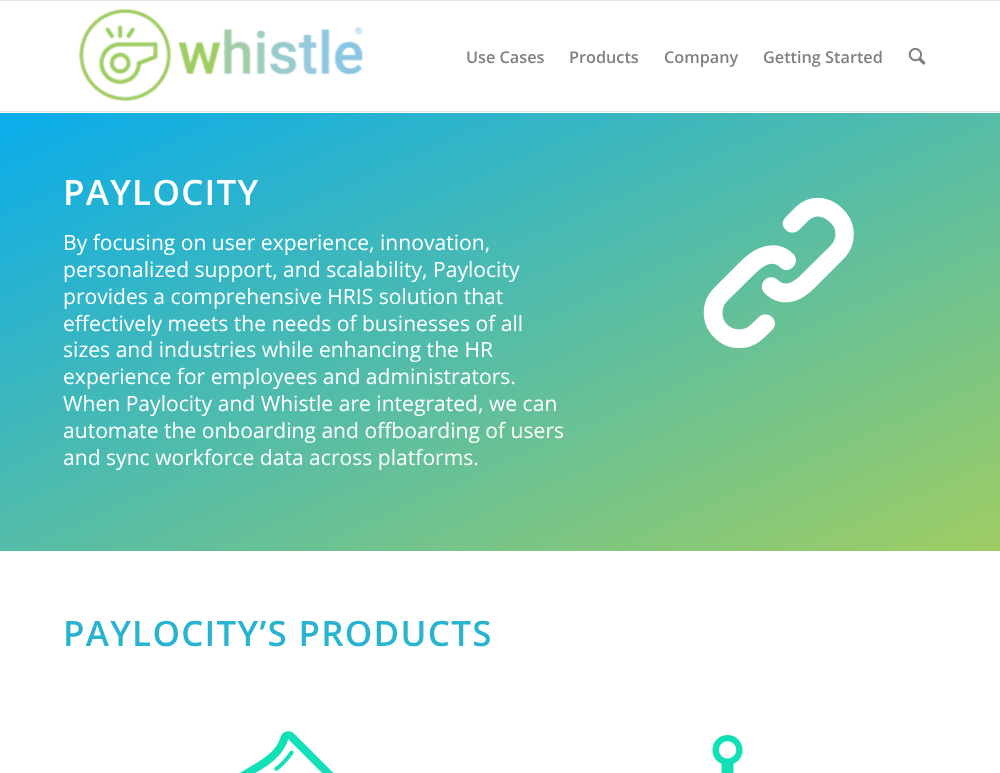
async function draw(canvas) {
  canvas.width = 1000;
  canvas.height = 773;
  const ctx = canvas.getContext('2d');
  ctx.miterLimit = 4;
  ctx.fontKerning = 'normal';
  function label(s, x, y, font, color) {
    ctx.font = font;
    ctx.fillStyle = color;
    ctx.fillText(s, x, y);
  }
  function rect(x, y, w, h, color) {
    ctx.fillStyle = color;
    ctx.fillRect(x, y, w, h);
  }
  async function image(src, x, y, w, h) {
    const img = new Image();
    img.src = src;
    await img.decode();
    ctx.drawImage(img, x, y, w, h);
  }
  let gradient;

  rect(0, 0, 1000, 773, '#fff');
  rect(0, 0, 1000, 1, '#e1e1e1');
  rect(0, 111, 1000, 1, '#e1e1e1');
  await image('assets/img1.png', 78, 8, 286, 94);
  label('Use Cases', 466, 63, '600 16.25px Open Sans', '#808080');
  label('Products', 569, 63, '600 16.25px Open Sans', '#808080');
  label('Company', 664, 63, '600 16.25px Open Sans', '#808080');
  label('Getting Started', 763, 63, '600 16.25px Open Sans', '#808080');
  await image('assets/img2.png', 908, 47, 18, 18);
  gradient = ctx.createLinearGradient(337, -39, 663, 700);
  gradient.addColorStop(0, '#09acec');
  gradient.addColorStop(1, '#9fcd63');
  ctx.fillStyle = gradient;
  ctx.fillRect(0, 113, 1000, 438);
  ctx.letterSpacing = '1.25px';
  label('PAYLOCITY', 63, 205, '600 35px Open Sans', '#fff');
  ctx.letterSpacing = '0px';
  label('By focusing on user experience, innovation,', 63, 250, '21.1px Open Sans', '#fff');
  label('personalized support, and scalability, Paylocity', 63, 277, '21.1px Open Sans', '#fff');
  label('provides a comprehensive HRIS solution that', 63, 304, '21.1px Open Sans', '#fff');
  label('effectively meets the needs of businesses of all', 63, 331, '21.1px Open Sans', '#fff');
  label('sizes and industries while enhancing the HR', 63, 357, '21.1px Open Sans', '#fff');
  label('experience for employees and administrators.', 63, 384, '21.1px Open Sans', '#fff');
  label('When Paylocity and Whistle are integrated, we can', 63, 411, '21.1px Open Sans', '#fff');
  label('automate the onboarding and offboarding of users', 63, 438, '21.1px Open Sans', '#fff');
  label('and sync workforce data across platforms.', 63, 465, '21.1px Open Sans', '#fff');
  await image('assets/img3.png', 703, 197, 151, 152);
  ctx.letterSpacing = '1.25px';
  label('PAYLOCITY’S PRODUCTS', 63, 646, '600 35px Open Sans', '#28b3d0');
  await image('assets/img4.png', 240, 731, 94, 42);
  await image('assets/img5.png', 712, 735, 31, 38);
}

draw(document.querySelector('canvas'));
